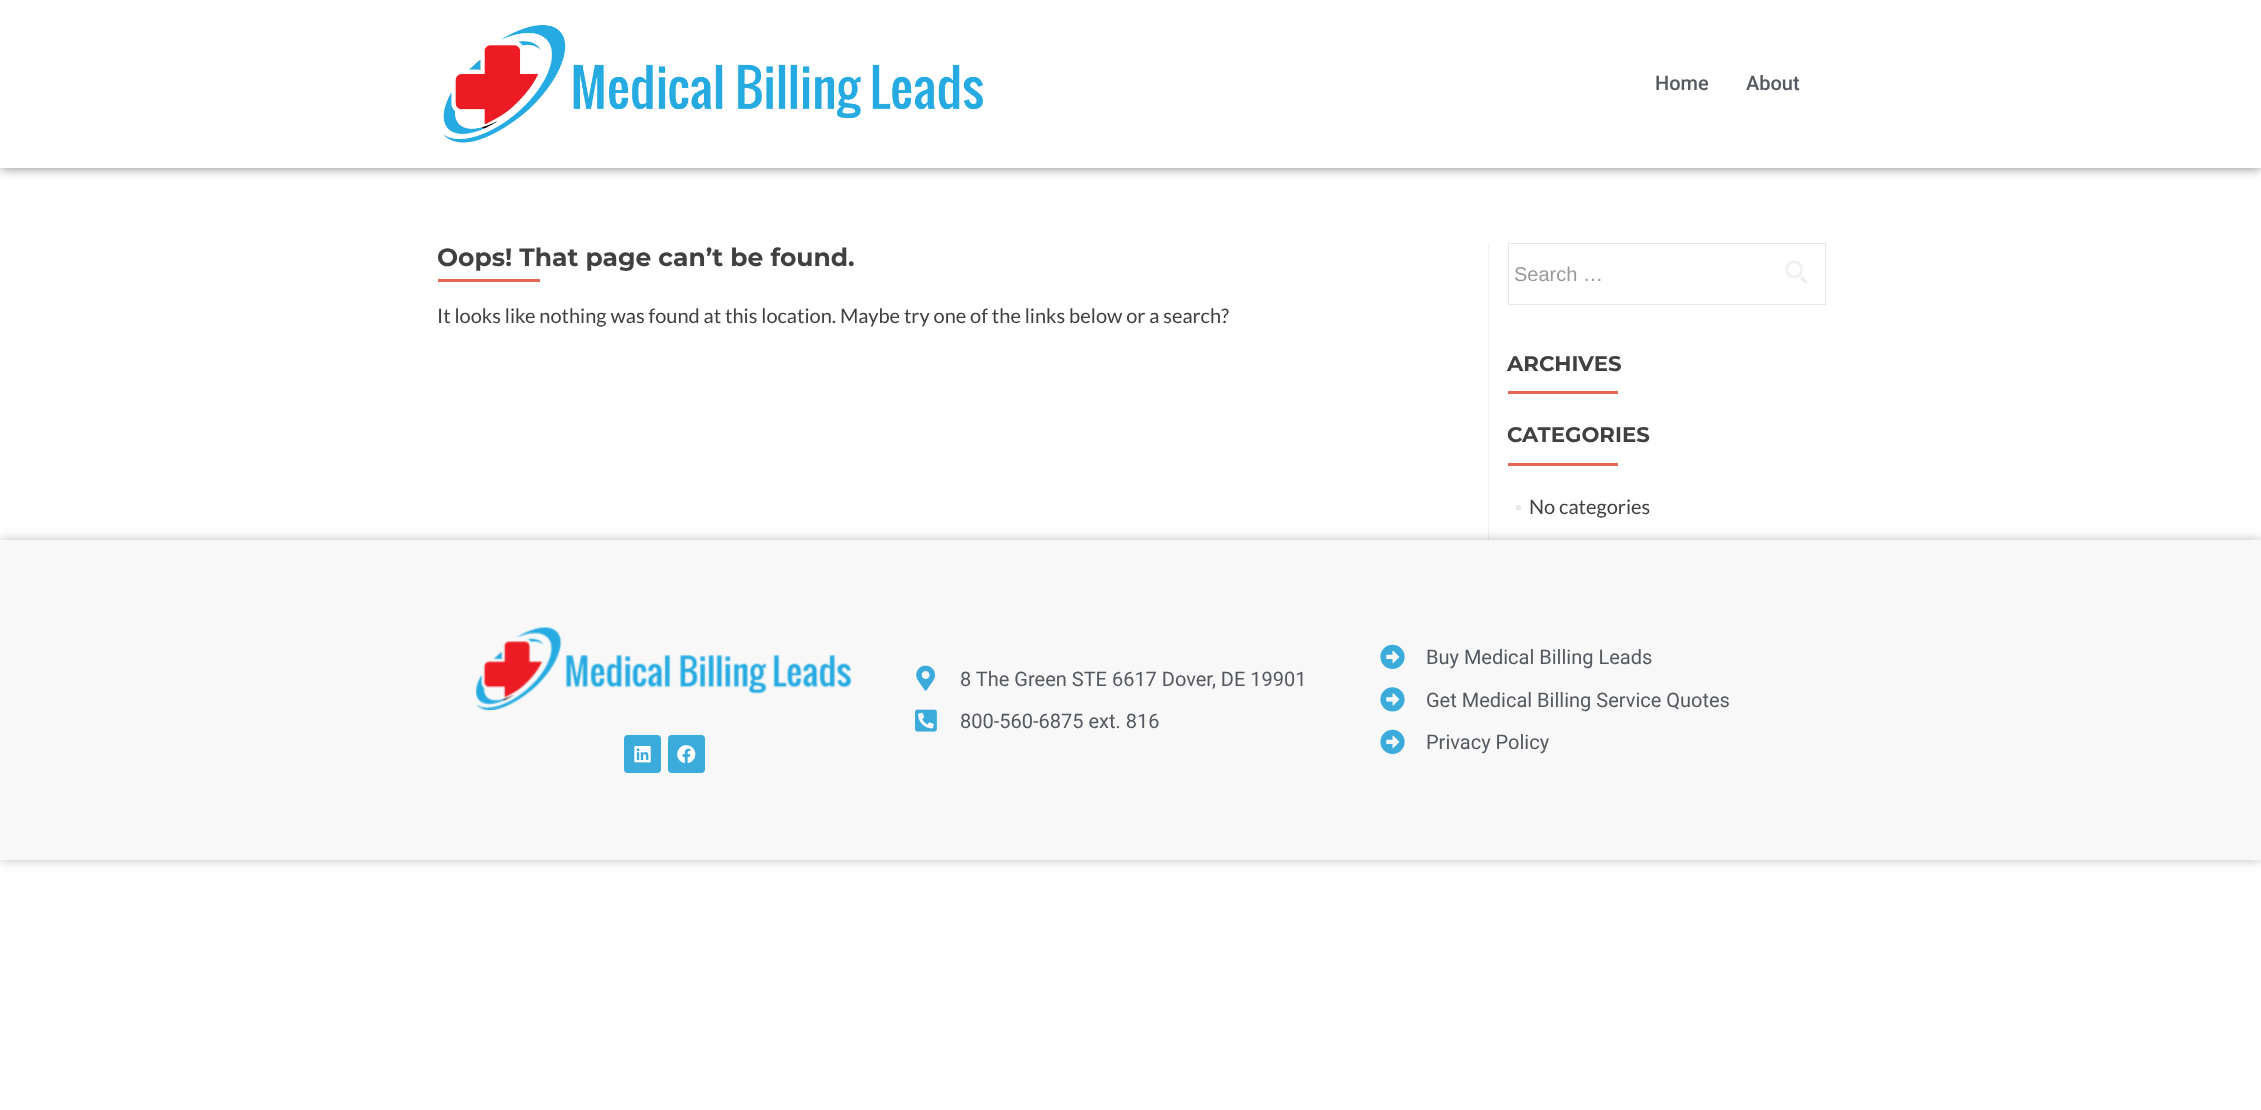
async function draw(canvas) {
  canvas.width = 2261;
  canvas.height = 1110;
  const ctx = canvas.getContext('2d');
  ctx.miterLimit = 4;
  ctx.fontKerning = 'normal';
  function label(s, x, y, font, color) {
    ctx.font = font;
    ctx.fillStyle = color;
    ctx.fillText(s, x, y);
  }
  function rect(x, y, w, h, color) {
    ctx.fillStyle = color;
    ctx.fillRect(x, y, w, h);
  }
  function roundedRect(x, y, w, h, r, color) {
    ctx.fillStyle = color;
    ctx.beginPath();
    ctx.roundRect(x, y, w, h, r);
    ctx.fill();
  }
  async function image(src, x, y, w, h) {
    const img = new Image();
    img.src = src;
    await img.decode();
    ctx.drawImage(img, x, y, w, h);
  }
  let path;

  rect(0, 0, 2261, 1110, '#fff');
  ctx.save();
  path = new Path2D('M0 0H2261V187H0ZM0 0H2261V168H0Z');
  ctx.clip(path, 'evenodd');
  ctx.fillStyle = '#00000080';
  ctx.filter = 'blur(6px)';
  ctx.beginPath();
  ctx.rect(0, 0, 2261, 168);
  ctx.fill();
  ctx.filter = 'none';
  ctx.restore();
  await image('assets/img1.png', 443, 25, 540, 118);
  label('Home', 1655, 90, '500 20px Roboto', '#54595f');
  label('About', 1746, 90, '500 20px Roboto', '#54595f');
  label('Oops! That page can’t be found.', 437, 266, 'bold 25px Montserrat', '#404040');
  rect(438, 279, 102, 3, '#e96656');
  label('It looks like nothing was found at this location. Maybe try one of the links below or a search?', 437, 323, '20px Lato', '#404040');
  rect(1488, 243, 1, 297, '#f2f2f2');
  ctx.strokeStyle = '#e6e6e6';
  ctx.strokeRect(1508.5, 243.5, 317, 61);
  label('Search …', 1514, 281, '20px Liberation Sans', '#999');
  await image('assets/img2.png', 1785, 260, 23, 24);
  label('ARCHIVES', 1507, 371, 'bold 21.25px Montserrat', '#404040');
  rect(1508, 391, 110, 3, '#e96656');
  label('CATEGORIES', 1507, 442, 'bold 21.25px Montserrat', '#404040');
  rect(1508, 463, 110, 3, '#e96656');
  rect(1516, 505, 5, 5, '#e9e9e9');
  label('No categories', 1529, 514, '20px Lato', '#404040');
  ctx.fillStyle = '#00000042';
  ctx.filter = 'blur(6px)';
  ctx.beginPath();
  ctx.rect(0, 540, 2261, 320);
  ctx.fill();
  ctx.filter = 'none';
  rect(0, 540, 2261, 320, '#f8f8f8');
  await image('assets/img3.png', 476, 627, 376, 83);
  roundedRect(624, 735, 37, 38, 4, '#3aabdb');
  await image('assets/img4.png', 634, 746, 17, 17);
  roundedRect(668, 735, 37, 38, 4, '#3aabdb');
  await image('assets/img5.png', 677, 745, 19, 19);
  await image('assets/img6.png', 916, 665, 19, 26);
  label('8 The Green STE 6617 Dover, DE 19901', 960, 686, '20px Roboto', '#54595f');
  await image('assets/img7.png', 915, 709, 22, 23);
  label('800-560-6875 ext. 816', 960, 728, '20px Roboto', '#54595f');
  await image('assets/img8.png', 1380, 644, 25, 25);
  label('Buy Medical Billing Leads', 1426, 664, '20px Roboto', '#54595f');
  await image('assets/img9.png', 1380, 687, 25, 25);
  label('Get Medical Billing Service Quotes', 1426, 707, '20px Roboto', '#54595f');
  await image('assets/img8.png', 1380, 729, 25, 25);
  label('Privacy Policy', 1426, 749, '20px Roboto', '#54595f');
}

draw(document.querySelector('canvas'));
